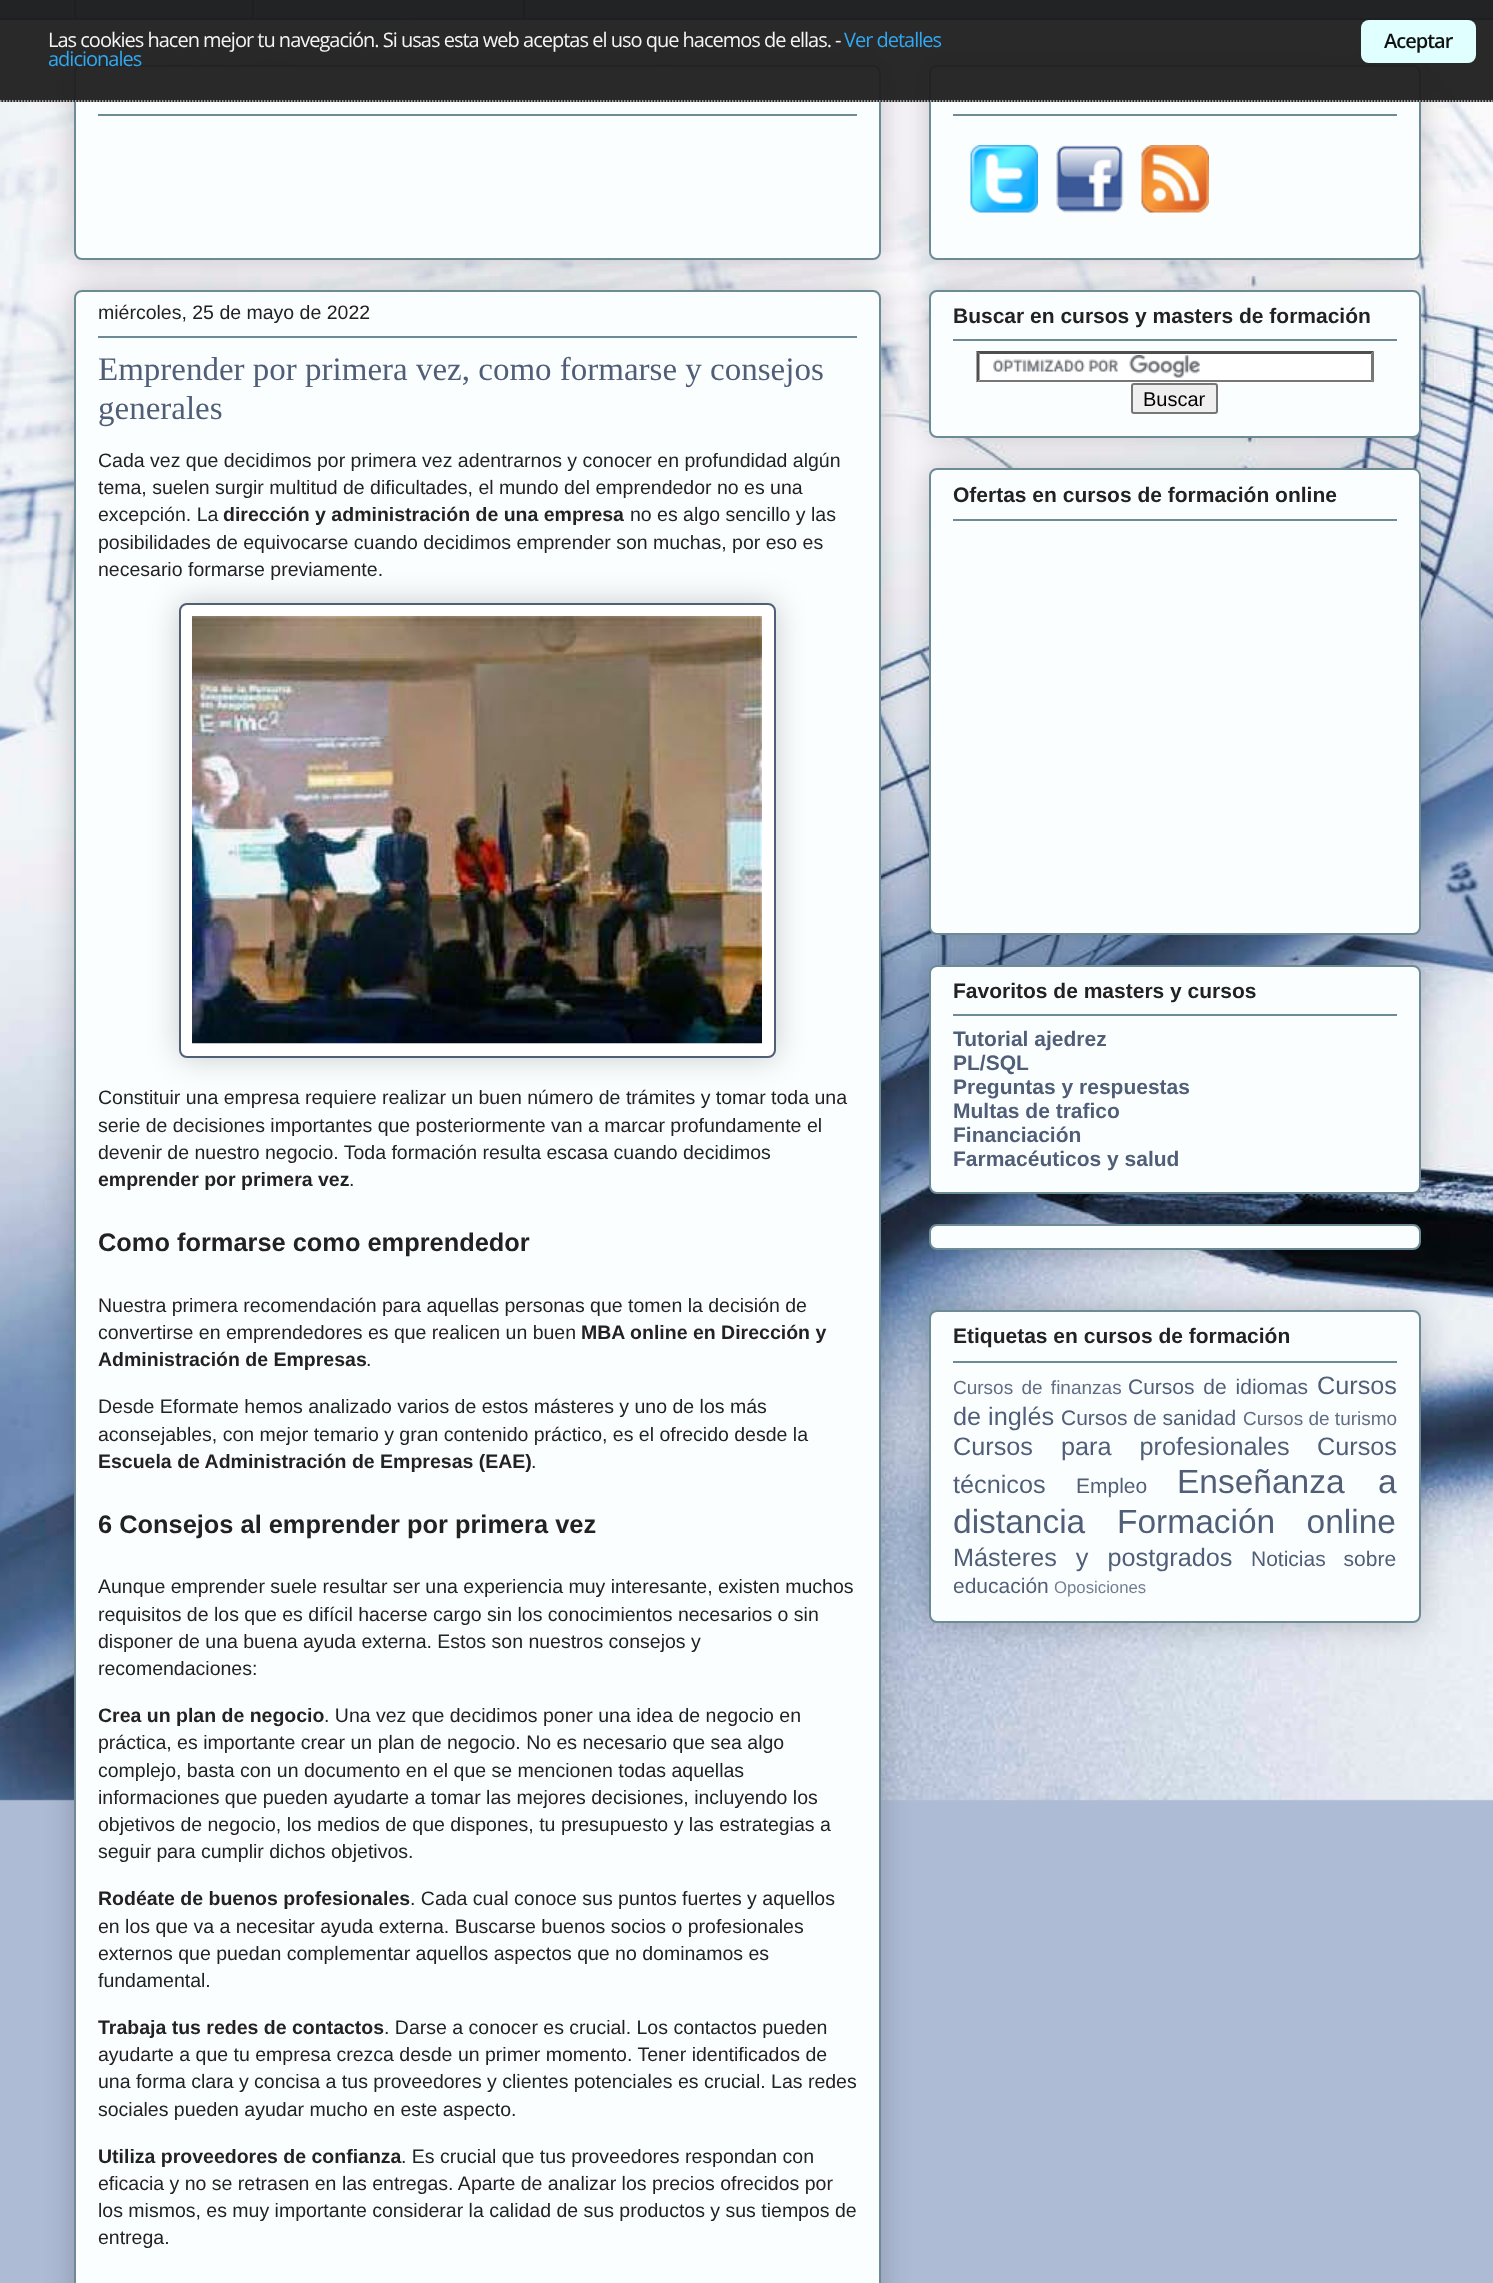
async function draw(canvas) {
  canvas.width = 1493;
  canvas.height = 2283;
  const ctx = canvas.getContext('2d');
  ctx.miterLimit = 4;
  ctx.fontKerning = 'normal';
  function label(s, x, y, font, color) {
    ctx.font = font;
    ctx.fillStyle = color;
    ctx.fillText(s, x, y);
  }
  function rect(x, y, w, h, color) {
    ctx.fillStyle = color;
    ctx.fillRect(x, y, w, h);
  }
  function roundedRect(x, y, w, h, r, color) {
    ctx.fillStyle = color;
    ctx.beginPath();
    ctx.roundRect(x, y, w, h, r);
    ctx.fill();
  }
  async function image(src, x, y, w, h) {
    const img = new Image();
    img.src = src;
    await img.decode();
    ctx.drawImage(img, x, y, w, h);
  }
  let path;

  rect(0, 0, 1493, 2283, '#adbbd5');
  await image('assets/img1.png', 0, 20, 1493, 1781);
  rect(0, 0, 1493, 18, '#8ba1cb');
  await image('assets/img2.png', 0, 0, 1493, 18);
  rect(74, 0, 2, 20, '#462d85');
  ctx.strokeStyle = '#462d85';
  ctx.lineWidth = 2;
  ctx.strokeRect(253, -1, 271, 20);
  rect(0, 18, 1493, 2, '#462d85');
  ctx.fillStyle = '#00000033';
  ctx.filter = 'blur(15px)';
  ctx.beginPath();
  ctx.roundRect(74, 65, 807, 195, 8);
  ctx.fill();
  ctx.filter = 'none';
  ctx.fillStyle = '#fbfefe';
  ctx.beginPath();
  ctx.roundRect(75, 66, 805, 193, 7);
  ctx.fill();
  ctx.strokeStyle = '#6d8b94';
  ctx.stroke();
  ctx.fillStyle = '#00000033';
  ctx.filter = 'blur(15px)';
  ctx.beginPath();
  ctx.roundRect(929, 65, 492, 195, 8);
  ctx.fill();
  ctx.filter = 'none';
  ctx.fillStyle = '#fbfefe';
  ctx.beginPath();
  ctx.roundRect(930, 66, 490, 193, 7);
  ctx.fill();
  ctx.stroke();
  rect(0, 0, 1493, 102, '#1d1d1df2');
  path = new Path2D('M0 101H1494');
  ctx.strokeStyle = '#ccc';
  ctx.lineWidth = 1.5;
  ctx.setLineDash([1.5, 1.5]);
  ctx.stroke(path);
  ctx.letterSpacing = '-1px';
  label('Las cookies hacen mejor tu navegación. Si usas esta web aceptas el uso que hacemos de ellas.', 48, 47, '20px Open Sans', '#f5f5f5');
  label('-', 835, 47, '20px Open Sans', '#f5f5f5');
  label('Ver detalles', 844, 47, '20px Open Sans', '#31a8f0');
  label('adicionales', 48, 66, '20px Open Sans', '#31a8f0');
  roundedRect(1361, 20, 115, 43, 8, '#e0ffff');
  label('Aceptar', 1384, 48, '600 20px Open Sans', '#111');
  rect(98, 114, 759, 2, '#6d8b94');
  ctx.fillStyle = '#00000033';
  ctx.filter = 'blur(15px)';
  ctx.beginPath();
  ctx.roundRect(74, 290, 807, 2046, 8);
  ctx.fill();
  ctx.filter = 'none';
  ctx.fillStyle = '#fbfefe';
  ctx.beginPath();
  ctx.roundRect(75, 291, 805, 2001, 7);
  ctx.fill();
  ctx.strokeStyle = '#6d8b94';
  ctx.lineWidth = 2;
  ctx.setLineDash([]);
  ctx.stroke();
  ctx.letterSpacing = '0px';
  label('miércoles, 25 de mayo de 2022', 98, 319, '19.5px Liberation Sans', '#222');
  rect(98, 336, 759, 2, '#6d8b94');
  label('Emprender por primera vez, como formarse y consejos', 98, 380, '33px Liberation Serif', '#505e78');
  label('generales', 98, 419, '33px Liberation Serif', '#505e78');
  label('Cada vez que decidimos por primera vez adentrarnos y conocer en profundidad algún', 98, 467, '19.5px Liberation Sans', '#222');
  label('tema, suelen surgir multitud de dificultades, el mundo del emprendedor no es una', 98, 494, '19.5px Liberation Sans', '#222');
  label('excepción. La', 98, 521, '19.5px Liberation Sans', '#222');
  label('dirección y administración de una empresa', 223, 521, 'bold 19.5px Liberation Sans', '#222');
  label('no es algo sencillo y las', 630, 521, '19.5px Liberation Sans', '#222');
  label('posibilidades de equivocarse cuando decidimos emprender son muchas, por eso es', 98, 549, '19.5px Liberation Sans', '#222');
  label('necesario formarse previamente.', 98, 576, '19.5px Liberation Sans', '#222');
  ctx.fillStyle = '#00000033';
  ctx.filter = 'blur(15px)';
  ctx.beginPath();
  ctx.roundRect(179, 603, 597, 455, 8);
  ctx.fill();
  ctx.filter = 'none';
  ctx.fillStyle = '#fff';
  ctx.beginPath();
  ctx.roundRect(180, 604, 595, 453, 7);
  ctx.fill();
  ctx.strokeStyle = '#505e78';
  ctx.stroke();
  await image('assets/img3.png', 192, 616, 570, 428);
  label('Constituir una empresa requiere realizar un buen número de trámites y tomar toda una', 98, 1104, '19.5px Liberation Sans', '#222');
  label('serie de decisiones importantes que posteriormente van a marcar profundamente el', 98, 1132, '19.5px Liberation Sans', '#222');
  label('devenir de nuestro negocio. Toda formación resulta escasa cuando decidimos', 98, 1159, '19.5px Liberation Sans', '#222');
  label('emprender por primera vez', 98, 1186, 'bold 19.5px Liberation Sans', '#222');
  label('.', 349, 1186, '19.5px Liberation Sans', '#222');
  label('Como formarse como emprendedor', 98, 1251, 'bold 25.4px Liberation Sans', '#222');
  label('Nuestra primera recomendación para aquellas personas que tomen la decisión de', 98, 1312, '19.5px Liberation Sans', '#222');
  label('convertirse en emprendedores es que realicen un buen', 98, 1339, '19.5px Liberation Sans', '#222');
  label('MBA online en Dirección y', 581, 1339, 'bold 19.5px Liberation Sans', '#222');
  label('Administración de Empresas', 98, 1366, 'bold 19.5px Liberation Sans', '#222');
  label('.', 366, 1366, '19.5px Liberation Sans', '#222');
  label('Desde Eformate hemos analizado varios de estos másteres y uno de los más', 98, 1413, '19.5px Liberation Sans', '#222');
  label('aconsejables, con mejor temario y gran contenido práctico, es el ofrecido desde la', 98, 1441, '19.5px Liberation Sans', '#222');
  label('Escuela de Administración de Empresas (EAE)', 98, 1468, 'bold 19.5px Liberation Sans', '#222');
  label('.', 531, 1468, '19.5px Liberation Sans', '#222');
  label('6 Consejos al emprender por primera vez', 98, 1533, 'bold 25.4px Liberation Sans', '#222');
  label('Aunque emprender suele resultar ser una experiencia muy interesante, existen muchos', 98, 1593, '19.5px Liberation Sans', '#222');
  label('requisitos de los que es difícil hacerse cargo sin los conocimientos necesarios o sin', 98, 1621, '19.5px Liberation Sans', '#222');
  label('disponer de una buena ayuda externa. Estos son nuestros consejos y', 98, 1648, '19.5px Liberation Sans', '#222');
  label('recomendaciones:', 98, 1675, '19.5px Liberation Sans', '#222');
  label('Crea un plan de negocio', 98, 1722, 'bold 19.5px Liberation Sans', '#222');
  label('. Una vez que decidimos poner una idea de negocio en', 324, 1722, '19.5px Liberation Sans', '#222');
  label('práctica, es importante crear un plan de negocio. No es necesario que sea algo', 98, 1749, '19.5px Liberation Sans', '#222');
  label('complejo, basta con un documento en el que se mencionen todas aquellas', 98, 1777, '19.5px Liberation Sans', '#222');
  label('informaciones que pueden ayudarte a tomar las mejores decisiones, incluyendo los', 98, 1804, '19.5px Liberation Sans', '#222');
  label('objetivos de negocio, los medios de que dispones, tu presupuesto y las estrategias a', 98, 1831, '19.5px Liberation Sans', '#222');
  label('seguir para cumplir dichos objetivos.', 98, 1858, '19.5px Liberation Sans', '#222');
  label('Rodéate de buenos profesionales', 98, 1905, 'bold 19.5px Liberation Sans', '#222');
  label('. Cada cual conoce sus puntos fuertes y aquellos', 410, 1905, '19.5px Liberation Sans', '#222');
  label('en los que va a necesitar ayuda externa. Buscarse buenos socios o profesionales', 98, 1933, '19.5px Liberation Sans', '#222');
  label('externos que puedan complementar aquellos aspectos que no dominamos es', 98, 1960, '19.5px Liberation Sans', '#222');
  label('fundamental.', 98, 1987, '19.5px Liberation Sans', '#222');
  label('Trabaja tus redes de contactos', 98, 2034, 'bold 19.5px Liberation Sans', '#222');
  label('. Darse a conocer es crucial. Los contactos pueden', 384, 2034, '19.5px Liberation Sans', '#222');
  label('ayudarte a que tu empresa crezca desde un primer momento. Tener identificados de', 98, 2061, '19.5px Liberation Sans', '#222');
  label('una forma clara y concisa a tus proveedores y clientes potenciales es crucial. Las redes', 98, 2088, '19.5px Liberation Sans', '#222');
  label('sociales pueden ayudar mucho en este aspecto.', 98, 2116, '19.5px Liberation Sans', '#222');
  label('Utiliza proveedores de confianza', 98, 2163, 'bold 19.5px Liberation Sans', '#222');
  label('. Es crucial que tus proveedores respondan con', 401, 2163, '19.5px Liberation Sans', '#222');
  label('eficacia y no se retrasen en las entregas. Aparte de analizar los precios ofrecidos por', 98, 2190, '19.5px Liberation Sans', '#222');
  label('los mismos, es muy importante considerar la calidad de sus productos y sus tiempos de', 98, 2217, '19.5px Liberation Sans', '#222');
  label('entrega.', 98, 2244, '19.5px Liberation Sans', '#222');
  rect(953, 114, 444, 2, '#6d8b94');
  await image('assets/img4.png', 970, 145, 68, 68);
  await image('assets/img5.png', 1056, 145, 68, 68);
  await image('assets/img6.png', 1141, 145, 68, 68);
  ctx.fillStyle = '#00000033';
  ctx.filter = 'blur(15px)';
  ctx.beginPath();
  ctx.roundRect(929, 290, 492, 148, 8);
  ctx.fill();
  ctx.filter = 'none';
  ctx.fillStyle = '#fbfefe';
  ctx.beginPath();
  ctx.roundRect(930, 291, 490, 146, 7);
  ctx.fill();
  ctx.strokeStyle = '#6d8b94';
  ctx.stroke();
  label('Buscar en cursos y masters de formación', 953, 323, 'bold 21px Liberation Sans', '#222');
  rect(953, 339, 444, 2, '#6d8b94');
  rect(977, 351, 397, 32, '#fff');
  await image('assets/img7.png', 993, 355, 207, 23);
  ctx.fillStyle = '#4f4f4f';
  path = new Path2D('M976 351H1374L1371 354H980Z');
  ctx.fill(path);
  ctx.fillStyle = '#767676';
  path = new Path2D('M1374 351V382.5L1371 379.5V354Z');
  ctx.fill(path);
  path = new Path2D('M1374 382H976L980 380H1371Z');
  ctx.fill(path);
  ctx.fillStyle = '#4f4f4f';
  path = new Path2D('M976.5 382.5V351L979.5 354V379.5Z');
  ctx.fill(path);
  ctx.fillStyle = '#efefef';
  ctx.beginPath();
  ctx.roundRect(1132, 384, 85, 29, 2);
  ctx.fill();
  ctx.strokeStyle = '#767676';
  ctx.stroke();
  label('Buscar', 1143, 406, '20px Liberation Sans', '#000');
  ctx.fillStyle = '#00000033';
  ctx.filter = 'blur(15px)';
  ctx.beginPath();
  ctx.roundRect(929, 468, 492, 467, 8);
  ctx.fill();
  ctx.filter = 'none';
  ctx.fillStyle = '#fbfefe';
  ctx.beginPath();
  ctx.roundRect(930, 469, 490, 465, 7);
  ctx.fill();
  ctx.strokeStyle = '#6d8b94';
  ctx.stroke();
  label('Ofertas en cursos de formación online', 953, 502, 'bold 21px Liberation Sans', '#222');
  rect(953, 519, 444, 2, '#6d8b94');
  ctx.fillStyle = '#00000033';
  ctx.filter = 'blur(15px)';
  ctx.beginPath();
  ctx.roundRect(929, 965, 492, 229, 8);
  ctx.fill();
  ctx.filter = 'none';
  ctx.fillStyle = '#fbfefe';
  ctx.beginPath();
  ctx.roundRect(930, 966, 490, 227, 7);
  ctx.fill();
  ctx.stroke();
  label('Favoritos de masters y cursos', 953, 998, 'bold 21px Liberation Sans', '#222');
  rect(953, 1014, 444, 2, '#6d8b94');
  label('Tutorial ajedrez', 953, 1046, 'bold 21px Liberation Sans', '#505e78');
  label('PL/SQL', 953, 1070, 'bold 21px Liberation Sans', '#505e78');
  label('Preguntas y respuestas', 953, 1094, 'bold 21px Liberation Sans', '#505e78');
  label('Multas de trafico', 953, 1118, 'bold 21px Liberation Sans', '#505e78');
  label('Financiación', 953, 1142, 'bold 21px Liberation Sans', '#505e78');
  label('Farmacéuticos y salud', 953, 1166, 'bold 21px Liberation Sans', '#505e78');
  ctx.fillStyle = '#00000033';
  ctx.filter = 'blur(15px)';
  ctx.beginPath();
  ctx.roundRect(929, 1224, 492, 26, 8);
  ctx.fill();
  ctx.filter = 'none';
  ctx.fillStyle = '#fbfefe';
  ctx.beginPath();
  ctx.roundRect(930, 1225, 490, 24, 7);
  ctx.fill();
  ctx.stroke();
  ctx.fillStyle = '#00000033';
  ctx.filter = 'blur(15px)';
  ctx.beginPath();
  ctx.roundRect(929, 1310, 492, 313, 8);
  ctx.fill();
  ctx.filter = 'none';
  ctx.fillStyle = '#fbfefe';
  ctx.beginPath();
  ctx.roundRect(930, 1311, 490, 311, 7);
  ctx.fill();
  ctx.stroke();
  label('Etiquetas en cursos de formación', 953, 1343, 'bold 21px Liberation Sans', '#222');
  rect(953, 1361, 444, 2, '#6d8b94');
  ctx.wordSpacing = '3px';
  label('Cursos de finanzas', 953, 1394, '19px Liberation Sans', '#616e85');
  label('Cursos de idiomas', 1128, 1394, '21px Liberation Sans', '#505e78');
  ctx.wordSpacing = '0px';
  label('Cursos', 1317, 1394, '25.25px Liberation Sans', '#505e78');
  label('de inglés', 953, 1425, '25.25px Liberation Sans', '#505e78');
  label('Cursos de sanidad', 1061, 1425, '21px Liberation Sans', '#505e78');
  label('Cursos de turismo', 1243, 1425, '19px Liberation Sans', '#616e85');
  ctx.wordSpacing = '21px';
  label('Cursos para profesionales', 953, 1455, '25.25px Liberation Sans', '#505e78');
  ctx.wordSpacing = '0px';
  label('Cursos', 1317, 1455, '25.25px Liberation Sans', '#505e78');
  label('técnicos', 953, 1493, '25.25px Liberation Sans', '#505e78');
  label('Empleo', 1076, 1493, '21px Liberation Sans', '#505e78');
  ctx.wordSpacing = '24px';
  label('Enseñanza a', 1177, 1493, '33.5px Liberation Sans', '#505e78');
  ctx.wordSpacing = '0px';
  label('distancia', 953, 1533, '33.5px Liberation Sans', '#505e78');
  ctx.wordSpacing = '22px';
  label('Formación online', 1117, 1533, '33.5px Liberation Sans', '#505e78');
  ctx.wordSpacing = '12px';
  label('Másteres y postgrados', 953, 1566, '25.25px Liberation Sans', '#505e78');
  label('Noticias sobre', 1251, 1566, '21px Liberation Sans', '#505e78');
  ctx.wordSpacing = '0px';
  label('educación', 953, 1593, '21px Liberation Sans', '#505e78');
  label('Oposiciones', 1054, 1593, '16.75px Liberation Sans', '#727e93');
}

draw(document.querySelector('canvas'));
